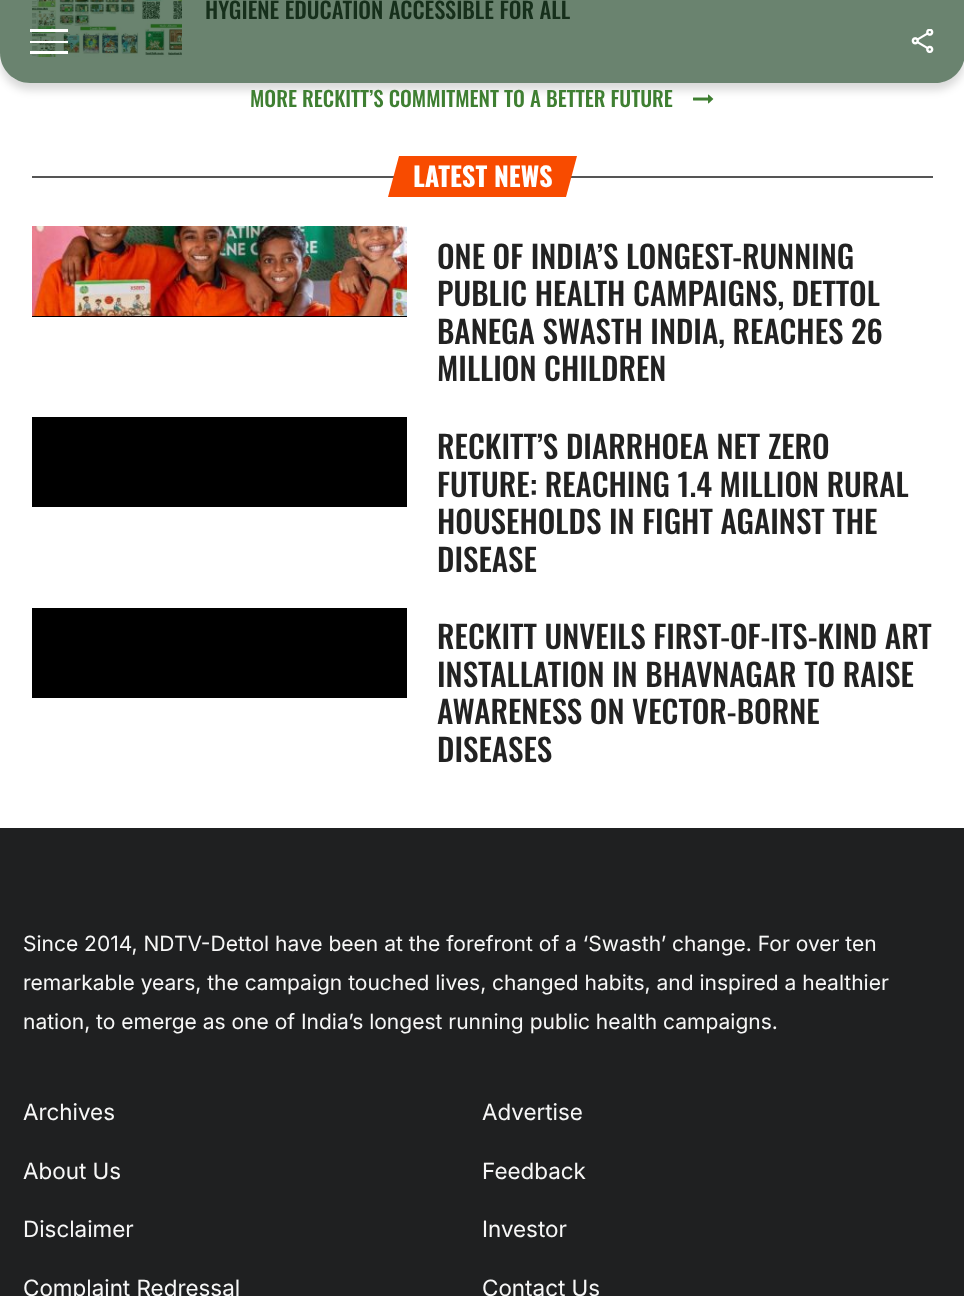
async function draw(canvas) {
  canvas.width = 964;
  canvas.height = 1296;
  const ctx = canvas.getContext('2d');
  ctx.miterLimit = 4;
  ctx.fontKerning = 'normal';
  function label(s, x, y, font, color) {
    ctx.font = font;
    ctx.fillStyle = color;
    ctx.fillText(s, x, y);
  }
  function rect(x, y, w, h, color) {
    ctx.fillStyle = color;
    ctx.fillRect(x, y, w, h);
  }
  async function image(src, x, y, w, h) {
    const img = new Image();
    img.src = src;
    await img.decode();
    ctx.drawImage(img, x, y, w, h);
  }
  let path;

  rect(0, 0, 964, 1296, '#fff');
  await image('assets/img2.png', 32, 0, 150, 57);
  await image('assets/img3.png', 693, 94, 21, 10);
  ctx.save();
  path = new Path2D('M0 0H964V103H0ZM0 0H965V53C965 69.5 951.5 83 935 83H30C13.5 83 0 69.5 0 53Z');
  ctx.clip(path, 'evenodd');
  ctx.fillStyle = '#00000026';
  ctx.filter = 'blur(4px)';
  ctx.beginPath();
  ctx.roundRect(0, 8, 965, 82, 30);
  ctx.fill();
  ctx.filter = 'none';
  ctx.restore();
  label('HYGIENE EDUCATION ACCESSIBLE FOR ALL', 205, 19, '500 22.5px Oswald', '#222');
  ctx.fillStyle = '#0e37169e';
  path = new Path2D('M0 0H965V53C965 69.5 951.5 83 935 83H30C13.5 83 0 69.5 0 53Z');
  ctx.fill(path);
  rect(30, 29, 38, 3, '#fff');
  rect(30, 41, 38, 2, '#fff');
  rect(30, 51, 38, 3, '#fff');
  await image('assets/img1.png', 911, 29, 23, 25);
  label('MORE RECKITT’S COMMITMENT TO A BETTER FUTURE', 250, 107, '500 21px Oswald', '#3f7f32');
  rect(32, 176, 901, 2, '#555');
  ctx.fillStyle = '#f84b00';
  path = new Path2D('M399 156H577L566 197H388Z');
  ctx.fill(path);
  label('LATEST NEWS', 413, 187, 'bold 26.5px Oswald', '#fff');
  rect(32, 316, 375, 1, '#000');
  await image('assets/img4.png', 32, 226, 375, 90);
  label('ONE OF INDIA’S LONGEST-RUNNING', 437, 269, '500 31.25px Oswald', '#222');
  label('PUBLIC HEALTH CAMPAIGNS, DETTOL', 437, 306, '500 31.25px Oswald', '#222');
  label('BANEGA SWASTH INDIA, REACHES 26', 437, 344, '500 31.25px Oswald', '#222');
  label('MILLION CHILDREN', 437, 381, '500 31.25px Oswald', '#222');
  rect(32, 417, 375, 90, '#000');
  label('RECKITT’S DIARRHOEA NET ZERO', 437, 459, '500 31.25px Oswald', '#222');
  label('FUTURE: REACHING 1.4 MILLION RURAL', 437, 497, '500 31.25px Oswald', '#222');
  label('HOUSEHOLDS IN FIGHT AGAINST THE', 437, 534, '500 31.25px Oswald', '#222');
  label('DISEASE', 437, 572, '500 31.25px Oswald', '#222');
  rect(32, 608, 375, 90, '#000');
  label('RECKITT UNVEILS FIRST-OF-ITS-KIND ART', 437, 649, '500 31.25px Oswald', '#222');
  label('INSTALLATION IN BHAVNAGAR TO RAISE', 437, 687, '500 31.25px Oswald', '#222');
  label('AWARENESS ON VECTOR-BORNE', 437, 724, '500 31.25px Oswald', '#222');
  label('DISEASES', 437, 762, '500 31.25px Oswald', '#222');
  rect(0, 828, 964, 468, '#1f2021');
  label('Since 2014, NDTV-Dettol have been at the forefront of a ‘Swasth’ change. For over ten', 23, 951, '21px Inter', '#f7f7f7');
  label('remarkable years, the campaign touched lives, changed habits, and inspired a healthier', 23, 990, '21px Inter', '#f7f7f7');
  label('nation, to emerge as one of India’s longest running public health campaigns.', 23, 1029, '21px Inter', '#f7f7f7');
  label('Archives', 23, 1120, '22.5px "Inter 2"', '#f7f7f7');
  label('Advertise', 482, 1120, '22.5px "Inter 2"', '#f7f7f7');
  label('About Us', 23, 1179, '22.5px "Inter 2"', '#f7f7f7');
  label('Feedback', 482, 1179, '22.5px "Inter 2"', '#f7f7f7');
  label('Disclaimer', 23, 1237, '22.5px "Inter 2"', '#f7f7f7');
  label('Investor', 482, 1237, '22.5px "Inter 2"', '#f7f7f7');
  label('Complaint Redressal', 23, 1296, '22.5px "Inter 2"', '#f7f7f7');
  label('Contact Us', 482, 1296, '22.5px "Inter 2"', '#f7f7f7');
}

draw(document.querySelector('canvas'));
